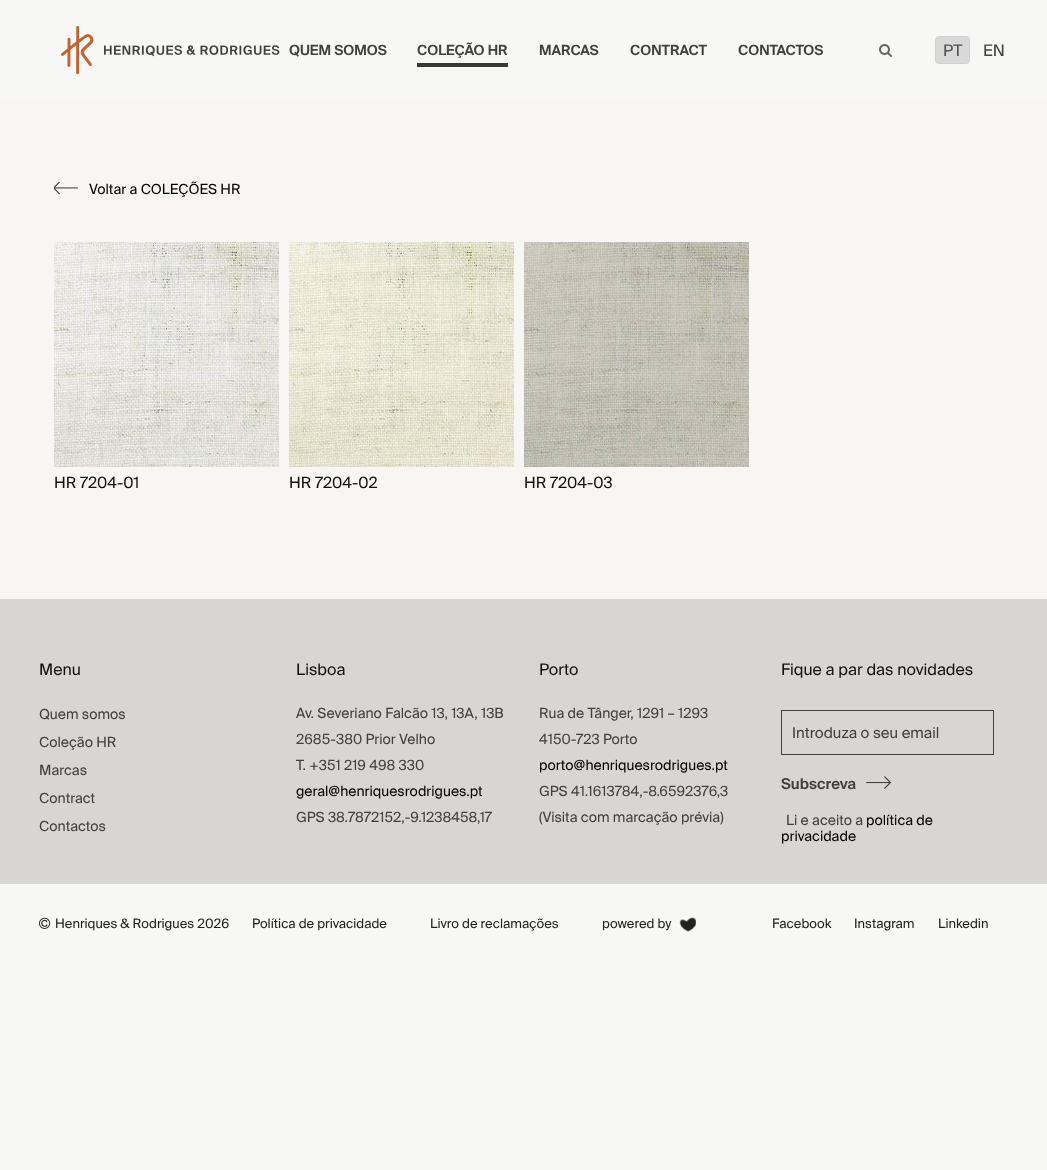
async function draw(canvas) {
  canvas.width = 1047;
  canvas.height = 1170;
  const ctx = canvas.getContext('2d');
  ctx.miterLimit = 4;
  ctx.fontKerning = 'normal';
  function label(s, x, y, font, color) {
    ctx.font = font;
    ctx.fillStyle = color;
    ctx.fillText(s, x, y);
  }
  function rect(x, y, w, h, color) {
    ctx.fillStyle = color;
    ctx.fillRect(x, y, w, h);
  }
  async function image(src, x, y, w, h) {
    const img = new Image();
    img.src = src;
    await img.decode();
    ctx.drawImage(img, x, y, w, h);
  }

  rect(0, 0, 1047, 1170, '#f7f7f5');
  await image('assets/img1.png', 60, 25, 220, 50);
  label('QUEM SOMOS', 289, 55, '600 14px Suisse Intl', '#404040');
  label('COLEÇÃO HR', 417, 55, '600 14px Suisse Intl', '#404040');
  rect(417, 63, 91, 4, '#383838');
  label('MARCAS', 539, 55, '600 14px Suisse Intl', '#404040');
  label('CONTRACT', 630, 55, '600 14px Suisse Intl', '#404040');
  label('CONTACTOS', 738, 55, '600 14px Suisse Intl', '#404040');
  await image('assets/img2.png', 879, 44, 13, 13);
  ctx.fillStyle = '#d9d9d9';
  ctx.beginPath();
  ctx.roundRect(935.5, 36.5, 34, 27, 3.5);
  ctx.fill();
  ctx.strokeStyle = '#d0d0d0';
  ctx.stroke();
  label('PT', 943, 56, '16px Suisse Intl', '#4f4f4f');
  label('EN', 983, 56, '16px Suisse Intl', '#404040');
  rect(0, 100, 1047, 499, '#f7f6f2');
  await image('assets/img3.png', 54, 182, 24, 13);
  label('Voltar a COLEÇÕES HR', 89, 194, '14px Suisse Intl', '#000');
  await image('assets/img4.png', 54, 242, 225, 225);
  label('HR 7204-01', 54, 488, '15.5px Suisse Intl', '#111');
  await image('assets/img5.png', 289, 242, 225, 225);
  label('HR 7204-02', 289, 488, '15.5px Suisse Intl', '#111');
  await image('assets/img6.png', 524, 242, 225, 225);
  label('HR 7204-03', 524, 488, '15.5px Suisse Intl', '#111');
  rect(0, 599, 1047, 285, '#d8d6d2');
  label('Menu', 39, 675, '16px Suisse Intl', '#111');
  label('Quem somos', 39, 719, '14px Suisse Intl', '#404040');
  label('Coleção HR', 39, 747, '14px Suisse Intl', '#404040');
  label('Marcas', 39, 775, '14px Suisse Intl', '#404040');
  label('Contract', 39, 803, '14px Suisse Intl', '#404040');
  label('Contactos', 39, 831, '14px Suisse Intl', '#404040');
  label('Lisboa', 296, 675, '16px Suisse Intl', '#111');
  label('Av. Severiano Falcão 13, 13A, 13B', 296, 718, '14px Suisse Intl', '#404040');
  label('2685-380 Prior Velho', 296, 744, '14px Suisse Intl', '#404040');
  label('T. +351 219 498 330', 296, 770, '14px Suisse Intl', '#404040');
  label('geral@henriquesrodrigues.pt', 296, 796, '14px Suisse Intl', '#000');
  label('GPS 38.7872152,-9.1238458,17', 296, 822, '14px Suisse Intl', '#404040');
  label('Porto', 539, 675, '16px Suisse Intl', '#111');
  label('Rua de Tânger, 1291 – 1293', 539, 718, '14px Suisse Intl', '#404040');
  label('4150-723 Porto', 539, 744, '14px Suisse Intl', '#404040');
  label('porto@henriquesrodrigues.pt', 539, 770, '14px Suisse Intl', '#000');
  label('GPS 41.1613784,-8.6592376,3', 539, 796, '14px Suisse Intl', '#404040');
  label('(Visita com marcação prévia)', 539, 822, '14px Suisse Intl', '#404040');
  label('Fique a par das novidades', 781, 675, '16px Suisse Intl', '#111');
  ctx.strokeStyle = '#404040';
  ctx.strokeRect(781.5, 710.5, 212, 44);
  label('Introduza o seu email', 792, 738, '15px Suisse Intl', '#404040');
  label('Subscreva', 781, 789, '600 15px Suisse Intl', '#404040');
  await image('assets/img7.png', 866, 776, 25, 13);
  label('Li e aceito a', 786, 825, '14px Suisse Intl', '#404040');
  label('política de', 866, 825, '14px Suisse Intl', '#000');
  label('privacidade', 781, 841, '14px Suisse Intl', '#000');
  await image('assets/img8.png', 39, 917, 12, 12);
  label('Henriques & Rodrigues 2026', 55, 928, '13px Suisse Intl', '#222');
  label('Política de privacidade', 252, 928, '13px Suisse Intl', '#222');
  label('Livro de reclamações', 430, 928, '13px Suisse Intl', '#222');
  label('powered by', 602, 928, '13px Suisse Intl', '#222');
  await image('assets/img9.png', 679, 917, 17, 15);
  label('Facebook', 772, 928, '13px Suisse Intl', '#222');
  label('Instagram', 854, 928, '13px Suisse Intl', '#222');
  label('Linkedin', 938, 928, '13px Suisse Intl', '#222');
}

draw(document.querySelector('canvas'));
